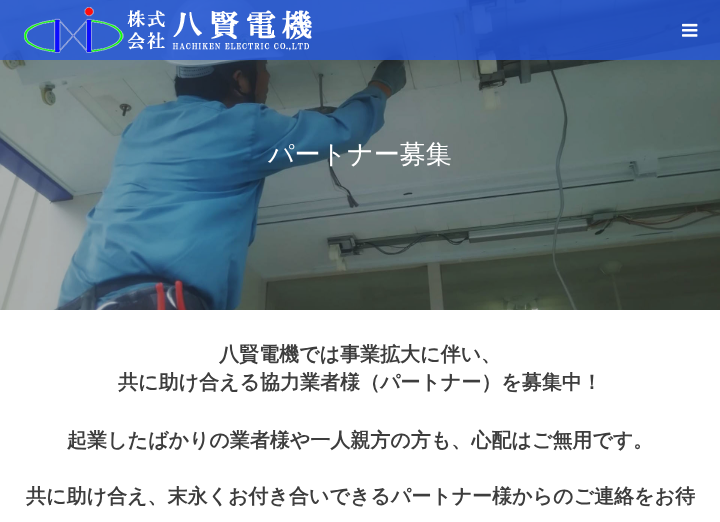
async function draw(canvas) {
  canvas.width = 720;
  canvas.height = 522;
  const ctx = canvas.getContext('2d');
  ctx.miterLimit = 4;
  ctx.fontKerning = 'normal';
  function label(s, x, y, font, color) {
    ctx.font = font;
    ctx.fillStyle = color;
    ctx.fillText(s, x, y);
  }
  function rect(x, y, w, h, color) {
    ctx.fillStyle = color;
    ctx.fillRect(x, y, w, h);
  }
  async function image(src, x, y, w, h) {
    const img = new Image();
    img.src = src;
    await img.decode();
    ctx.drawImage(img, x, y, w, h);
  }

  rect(0, 0, 720, 522, '#fff');
  await image('assets/img3.png', 0, 0, 720, 310);
  rect(0, 0, 720, 60, '#2358e0cc');
  await image('assets/img1.png', 24, 7, 288, 46);
  await image('assets/img2.png', 682, 23, 16, 14);
  label('パートナー募集', 268, 163, '500 26px WenQuanYi Zen Hei', '#fff');
  label('八賢電機では事業拡大に伴い、', 219, 361, 'bold 20px WenQuanYi Zen Hei', '#3d3d3d');
  label('共に助け合える協力業者様（パートナー）を募集中！', 118, 389, 'bold 20px WenQuanYi Zen Hei', '#3d3d3d');
  label('起業したばかりの業者様や一人親方の方も、心配はご無用です。', 67, 447, 'bold 20px WenQuanYi Zen Hei', '#3d3d3d');
  label('共に助け合え、末永くお付き合いできるパートナー様からのご連絡をお待', 26, 503, 'bold 20px WenQuanYi Zen Hei', '#3d3d3d');
}

draw(document.querySelector('canvas'));
